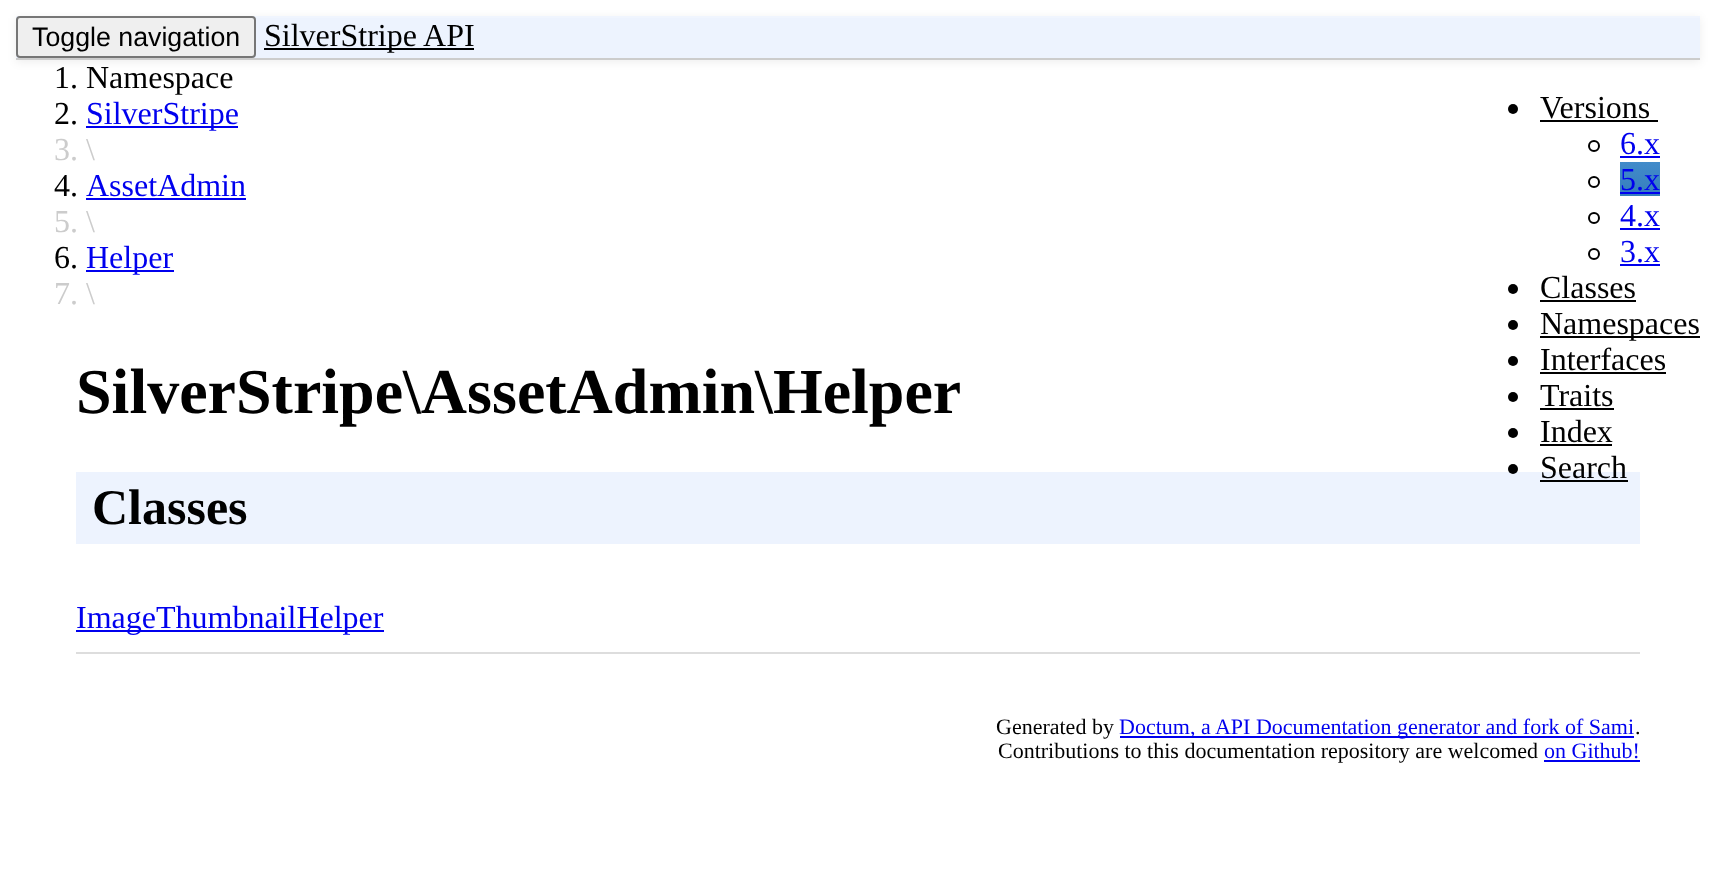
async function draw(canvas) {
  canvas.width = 1715;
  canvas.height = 871;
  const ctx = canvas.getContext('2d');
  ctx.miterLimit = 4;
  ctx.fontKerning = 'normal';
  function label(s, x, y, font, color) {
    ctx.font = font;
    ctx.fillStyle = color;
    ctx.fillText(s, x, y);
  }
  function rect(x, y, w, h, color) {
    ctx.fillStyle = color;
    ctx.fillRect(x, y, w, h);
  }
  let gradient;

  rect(0, 0, 1715, 871, '#fff');
  ctx.fillStyle = '#00000012';
  ctx.filter = 'blur(5px)';
  ctx.beginPath();
  ctx.rect(16, 18, 1684, 44);
  ctx.fill();
  ctx.filter = 'none';
  rect(16, 18, 1684, 40, '#edf3fe');
  rect(16, 16, 1684, 2, '#f0f5fe');
  rect(16, 58, 1684, 2, '#ccc');
  ctx.fillStyle = '#efefef';
  ctx.beginPath();
  ctx.roundRect(17, 17, 238, 40, 3);
  ctx.fill();
  ctx.strokeStyle = '#767676';
  ctx.lineWidth = 2;
  ctx.stroke();
  label('Toggle navigation', 32, 46, '26.75px Liberation Sans', '#000');
  rect(264, 48, 210, 2, '#000');
  label('SilverStripe API', 264, 46, '32px Liberation Serif', '#000');
  ctx.beginPath();
  ctx.arc(1513, 109, 5, 0, 2 * Math.PI);
  ctx.fill();
  label('Versions', 1540, 118, '32px Liberation Serif', '#000');
  rect(1540, 120, 118, 2, '#000');
  ctx.beginPath();
  ctx.arc(1594, 146, 5, 0, 2 * Math.PI);
  ctx.strokeStyle = '#000';
  ctx.stroke();
  label('6.x', 1620, 154, '32px Liberation Serif', '#00e');
  rect(1620, 156, 40, 2, '#00e');
  ctx.beginPath();
  ctx.arc(1594, 182, 5, 0, 2 * Math.PI);
  ctx.stroke();
  gradient = ctx.createLinearGradient(1640, 162, 1640, 196);
  gradient.addColorStop(0, '#428bca');
  gradient.addColorStop(1, '#357ebd');
  ctx.fillStyle = gradient;
  ctx.fillRect(1620, 162, 40, 34);
  label('5.x', 1620, 190, '32px Liberation Serif', '#00e');
  rect(1620, 192, 40, 2, '#00e');
  ctx.beginPath();
  ctx.arc(1594, 218, 5, 0, 2 * Math.PI);
  ctx.stroke();
  label('4.x', 1620, 226, '32px Liberation Serif', '#00e');
  rect(1620, 228, 40, 2, '#00e');
  ctx.beginPath();
  ctx.arc(1594, 254, 5, 0, 2 * Math.PI);
  ctx.stroke();
  label('3.x', 1620, 262, '32px Liberation Serif', '#00e');
  rect(1620, 264, 40, 2, '#00e');
  ctx.fillStyle = '#000';
  ctx.beginPath();
  ctx.arc(1513, 289, 5, 0, 2 * Math.PI);
  ctx.fill();
  label('Classes', 1540, 298, '32px Liberation Serif', '#000');
  rect(1540, 300, 96, 2, '#000');
  ctx.beginPath();
  ctx.arc(1513, 325, 5, 0, 2 * Math.PI);
  ctx.fill();
  rect(1540, 336, 160, 2, '#000');
  label('Namespaces', 1540, 334, '32px Liberation Serif', '#000');
  ctx.beginPath();
  ctx.arc(1513, 361, 5, 0, 2 * Math.PI);
  ctx.fill();
  label('Interfaces', 1540, 370, '32px Liberation Serif', '#000');
  rect(1540, 372, 126, 2, '#000');
  ctx.beginPath();
  ctx.arc(1513, 397, 5, 0, 2 * Math.PI);
  ctx.fill();
  label('Traits', 1540, 406, '32px Liberation Serif', '#000');
  rect(1540, 408, 74, 2, '#000');
  ctx.beginPath();
  ctx.arc(1513, 433, 5, 0, 2 * Math.PI);
  ctx.fill();
  label('Index', 1540, 442, '32px Liberation Serif', '#000');
  rect(1540, 444, 72, 2, '#000');
  rect(76, 472, 1564, 72, '#edf3fe');
  ctx.fillStyle = '#000';
  ctx.beginPath();
  ctx.arc(1513, 469, 5, 0, 2 * Math.PI);
  ctx.fill();
  label('Search', 1540, 478, '32px Liberation Serif', '#000');
  rect(1540, 480, 88, 2, '#000');
  label('1. Namespace', 54, 88, '32px Liberation Serif', '#000');
  label('2.', 54, 124, '32px Liberation Serif', '#000');
  rect(86, 126, 152, 2, '#00e');
  label('SilverStripe', 86, 124, '32px Liberation Serif', '#00e');
  label('3. \\', 54, 160, '32px Liberation Serif', '#ccc');
  label('4.', 54, 196, '32px Liberation Serif', '#000');
  label('AssetAdmin', 86, 196, '32px Liberation Serif', '#00e');
  rect(86, 198, 160, 2, '#00e');
  label('5. \\', 54, 232, '32px Liberation Serif', '#ccc');
  label('6.', 54, 268, '32px Liberation Serif', '#000');
  rect(86, 270, 88, 2, '#00e');
  label('Helper', 86, 268, '32px Liberation Serif', '#00e');
  label('7. \\', 54, 304, '32px Liberation Serif', '#ccc');
  label('SilverStripe\\AssetAdmin\\Helper', 76, 413, 'bold 64px Liberation Serif', '#000');
  label('Classes', 92, 524, 'bold 50px Liberation Serif', '#000');
  rect(76, 652, 1564, 2, '#ddd');
  rect(76, 630, 308, 2, '#00e');
  label('ImageThumbnailHelper', 76, 628, '32px Liberation Serif', '#00e');
  label('Generated by', 996, 734, '22px Liberation Serif', '#000');
  rect(1120, 736, 514, 2, '#00e');
  label('Doctum, a API Documentation generator and fork of Sami', 1119, 734, '22px Liberation Serif', '#00e');
  label('.', 1635, 734, '22px Liberation Serif', '#000');
  label('Contributions to this documentation repository are welcomed', 998, 758, '22px Liberation Serif', '#000');
  label('on Github!', 1544, 758, '22px Liberation Serif', '#00e');
  rect(1544, 760, 96, 2, '#00e');
}

draw(document.querySelector('canvas'));
